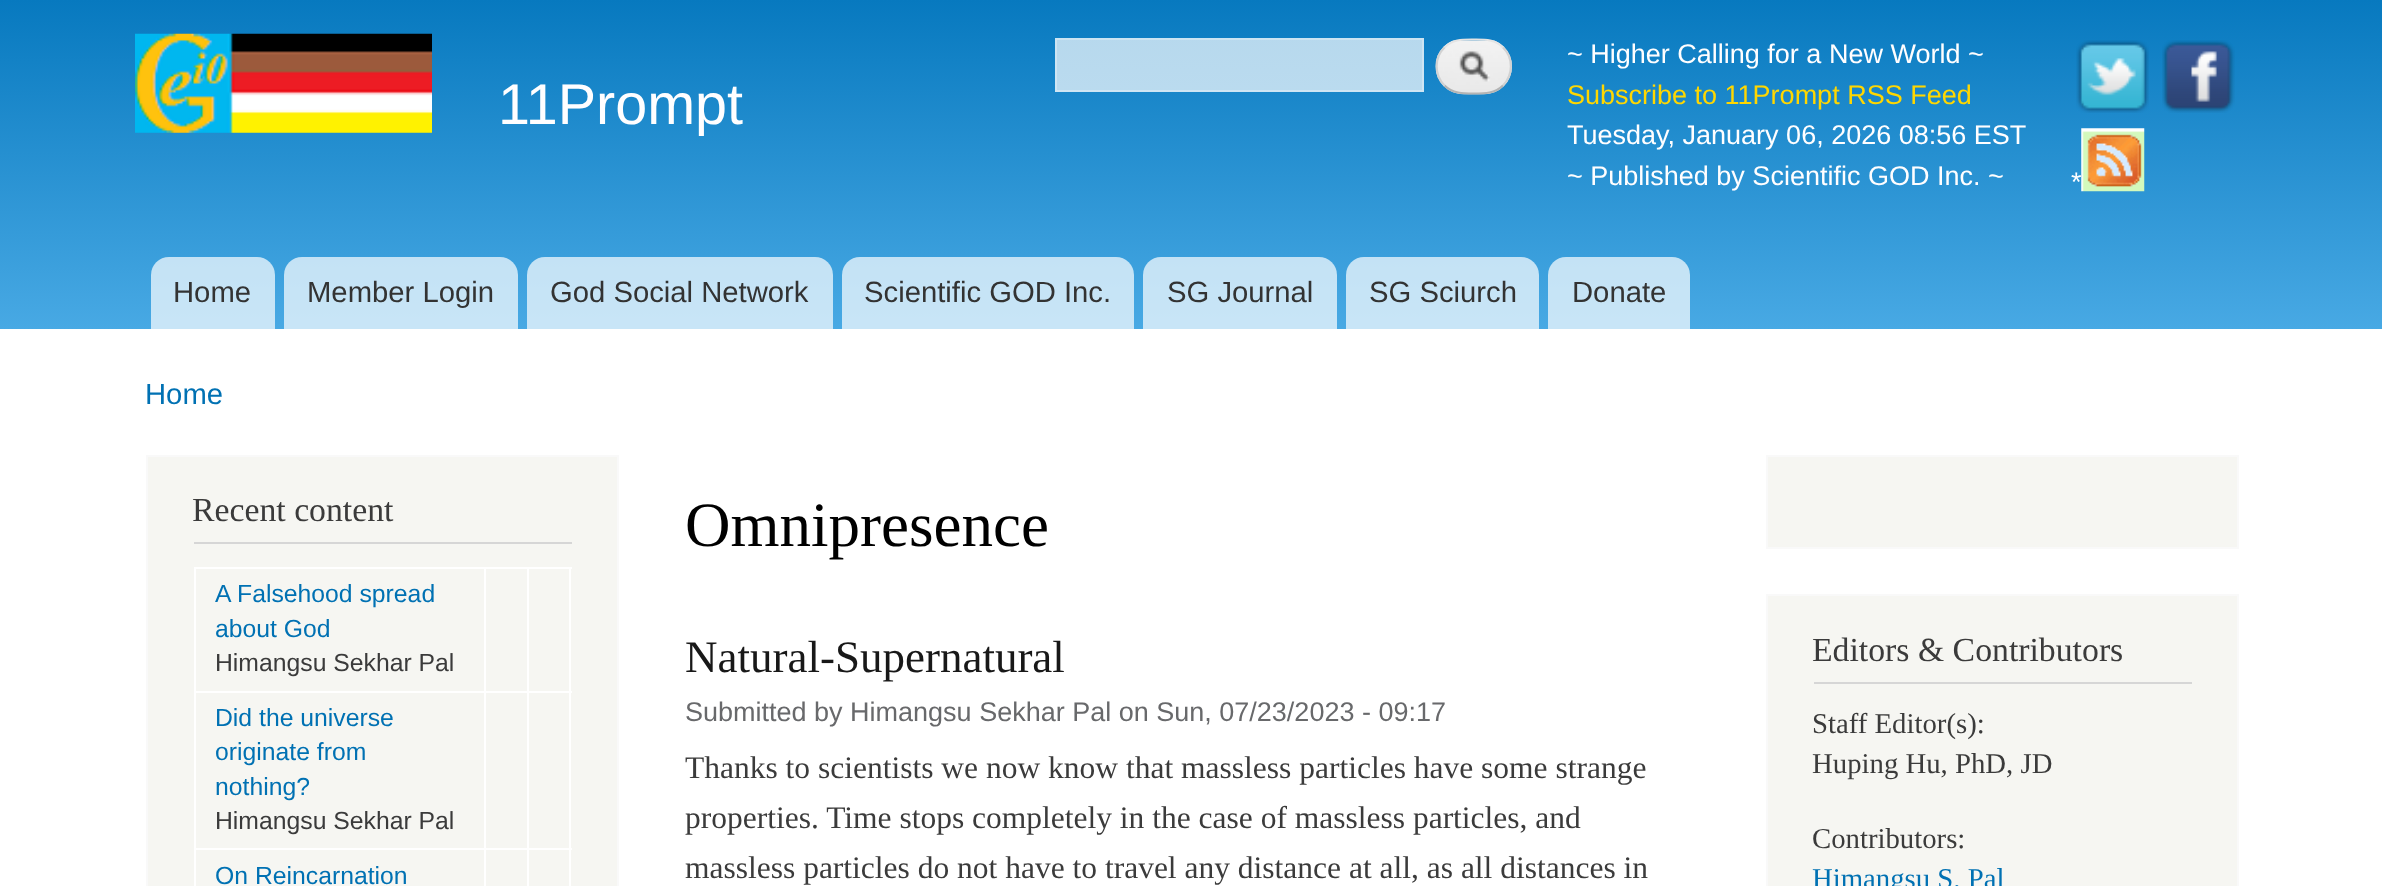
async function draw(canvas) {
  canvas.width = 2382;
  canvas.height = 886;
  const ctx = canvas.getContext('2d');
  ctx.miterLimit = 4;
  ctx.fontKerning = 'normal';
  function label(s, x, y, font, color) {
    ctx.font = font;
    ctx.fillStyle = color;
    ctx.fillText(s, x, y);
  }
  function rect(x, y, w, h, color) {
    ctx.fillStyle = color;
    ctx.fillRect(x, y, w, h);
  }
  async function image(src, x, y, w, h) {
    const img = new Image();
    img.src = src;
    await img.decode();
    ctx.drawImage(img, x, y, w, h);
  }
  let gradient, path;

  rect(0, 0, 2382, 886, '#fff');
  gradient = ctx.createLinearGradient(1191, 0, 1191, 329);
  gradient.addColorStop(0, '#0779bf');
  gradient.addColorStop(1, '#48a9e4');
  ctx.fillStyle = gradient;
  ctx.fillRect(0, 0, 2382, 329);
  gradient = ctx.createLinearGradient(1191, 0, 1191, 329);
  gradient.addColorStop(0, '#b5d7ec');
  gradient.addColorStop(1, '#c8e5f7');
  ctx.fillStyle = gradient;
  ctx.fillRect(1055, 38, 369, 54);
  await image('assets/img1.png', 135, 33, 297, 100);
  label('11Prompt', 498, 124, '57.5px Liberation Sans', '#fffeff');
  ctx.strokeStyle = '#ffffff4d';
  ctx.lineWidth = 2;
  ctx.strokeRect(1056, 39, 367, 52);
  await image('assets/img2.png', 1435, 40, 77, 55);
  path = new Path2D('M1444.5 47.5C1452.5 39 1463 39.5 1474 39.5C1484.5 39.5 1495 39 1503 47.5');
  ctx.strokeStyle = '#e4e4e4';
  ctx.lineWidth = 2.2;
  ctx.stroke(path);
  path = new Path2D('M1503 47.5C1513.5 57.5 1513.5 75 1503 85.5');
  ctx.strokeStyle = '#d2d2d2';
  ctx.stroke(path);
  path = new Path2D('M1503 85.5C1495 93.5 1484.5 93.5 1474 93.5C1463 93.5 1452.5 93.5 1444.5 85.5');
  ctx.strokeStyle = '#b4b4b4';
  ctx.stroke(path);
  path = new Path2D('M1444.5 85.5C1434 75 1434 57.5 1444.5 47.5');
  ctx.strokeStyle = '#d2d2d2';
  ctx.stroke(path);
  label('~ Higher Calling for a New World ~', 1567, 63, '27px Liberation Sans', '#fffeff');
  label('Subscribe to 11Prompt RSS Feed', 1567, 104, '27px Liberation Sans', '#ffd700');
  label('Tuesday, January 06, 2026 08:56 EST', 1567, 144, '27px Liberation Sans', '#fffeff');
  label('~ Published by Scientific GOD Inc. ~', 1567, 185, '27px Liberation Sans', '#fffeff');
  await image('assets/img3.png', 2076, 40, 73, 73);
  await image('assets/img4.png', 2162, 40, 73, 73);
  label('*', 2071, 191, '27px Liberation Sans', '#fffeff');
  await image('assets/img5.png', 2081, 128, 64, 64);
  ctx.fillStyle = '#ffffffb3';
  ctx.beginPath();
  ctx.roundRect(151, 257, 124, 72, [18, 18, 0, 0]);
  ctx.fill();
  label('Home', 173, 302, '29.25px Liberation Sans', '#333');
  ctx.fillStyle = '#ffffffb3';
  ctx.beginPath();
  ctx.roundRect(284, 257, 234, 72, [18, 18, 0, 0]);
  ctx.fill();
  label('Member Login', 307, 302, '29.25px Liberation Sans', '#333');
  ctx.fillStyle = '#ffffffb3';
  ctx.beginPath();
  ctx.roundRect(527, 257, 306, 72, [18, 18, 0, 0]);
  ctx.fill();
  label('God Social Network', 550, 302, '29.25px Liberation Sans', '#333');
  ctx.fillStyle = '#ffffffb3';
  ctx.beginPath();
  ctx.roundRect(842, 257, 292, 72, [18, 18, 0, 0]);
  ctx.fill();
  label('Scientific GOD Inc.', 864, 302, '29.25px Liberation Sans', '#333');
  ctx.fillStyle = '#ffffffb3';
  ctx.beginPath();
  ctx.roundRect(1143, 257, 194, 72, [18, 18, 0, 0]);
  ctx.fill();
  label('SG Journal', 1167, 302, '29.25px Liberation Sans', '#333');
  ctx.fillStyle = '#ffffffb3';
  ctx.beginPath();
  ctx.roundRect(1346, 257, 193, 72, [18, 18, 0, 0]);
  ctx.fill();
  label('SG Sciurch', 1369, 302, '29.25px Liberation Sans', '#333');
  ctx.fillStyle = '#ffffffb3';
  ctx.beginPath();
  ctx.roundRect(1548, 257, 142, 72, [18, 18, 0, 0]);
  ctx.fill();
  label('Donate', 1572, 302, '29.25px Liberation Sans', '#333');
  label('Home', 145, 404, '29.25px Liberation Sans', '#0071b3');
  ctx.fillStyle = '#f6f6f2';
  ctx.beginPath();
  ctx.rect(147, 456, 471, 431);
  ctx.fill();
  ctx.strokeStyle = '#f9f9f9';
  ctx.lineWidth = 2;
  ctx.stroke();
  rect(194, 542, 378, 2, '#d6d6d6');
  label('Recent content', 192, 521, '33.75px Liberation Serif', '#3b3b3b');
  rect(527, 567, 45, 2, '#fff');
  rect(527, 691, 45, 2, '#fff');
  rect(527, 848, 45, 2, '#fff');
  rect(527, 848, 2, 38, '#fff');
  rect(484, 848, 45, 2, '#fff');
  rect(527, 691, 2, 160, '#fff');
  rect(484, 691, 45, 2, '#fff');
  rect(527, 567, 2, 126, '#fff');
  rect(484, 567, 45, 2, '#fff');
  rect(484, 848, 2, 38, '#fff');
  rect(194, 848, 292, 2, '#fff');
  rect(484, 691, 2, 160, '#fff');
  rect(194, 691, 292, 2, '#fff');
  rect(484, 567, 2, 126, '#fff');
  rect(194, 567, 292, 2, '#fff');
  rect(194, 848, 2, 38, '#fff');
  rect(194, 691, 2, 160, '#fff');
  rect(194, 567, 2, 126, '#fff');
  label('A Falsehood spread', 215, 602, '24.75px Liberation Sans', '#0071b3');
  label('about God', 215, 637, '24.75px Liberation Sans', '#0071b3');
  label('Himangsu Sekhar Pal', 215, 671, '24.75px Liberation Sans', '#3b3b3b');
  rect(569, 848, 2, 38, '#fff');
  rect(569, 691, 2, 160, '#fff');
  rect(569, 567, 2, 126, '#fff');
  label('Did the universe', 215, 726, '24.75px Liberation Sans', '#0071b3');
  label('originate from', 215, 760, '24.75px Liberation Sans', '#0071b3');
  label('nothing?', 215, 795, '24.75px Liberation Sans', '#0071b3');
  label('Himangsu Sekhar Pal', 215, 829, '24.75px Liberation Sans', '#3b3b3b');
  label('On Reincarnation', 215, 884, '24.75px Liberation Sans', '#0071b3');
  label('Omnipresence', 685, 546, '63px Liberation Serif', '#000');
  label('Natural-Supernatural', 685, 672, '45px Liberation Serif', '#181818');
  label('Submitted by Himangsu Sekhar Pal on Sun, 07/23/2023 - 09:17', 685, 721, '27px Liberation Sans', '#68696b');
  label('Thanks to scientists we now know that massless particles have some strange', 685, 778, '31.5px Liberation Serif', '#3b3b3b');
  label('properties. Time stops completely in the case of massless particles, and', 685, 828, '31.5px Liberation Serif', '#3b3b3b');
  label('massless particles do not have to travel any distance at all, as all distances in', 685, 878, '31.5px Liberation Serif', '#3b3b3b');
  ctx.fillStyle = '#f6f6f2';
  ctx.beginPath();
  ctx.rect(1767, 456, 471, 92);
  ctx.fill();
  ctx.stroke();
  ctx.beginPath();
  ctx.rect(1767, 595, 471, 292);
  ctx.fill();
  ctx.stroke();
  rect(1814, 682, 378, 2, '#d6d6d6');
  label('Editors & Contributors', 1812, 661, '33.75px Liberation Serif', '#3b3b3b');
  label('Staff Editor(s):', 1812, 733, '28.75px Liberation Serif', '#3b3b3b');
  label('Huping Hu, PhD, JD', 1812, 773, '28.75px Liberation Serif', '#3b3b3b');
  label('Contributors:', 1812, 848, '28.75px Liberation Serif', '#3b3b3b');
  label('Himangsu S. Pal', 1812, 888, '28.75px Liberation Serif', '#0071b3');
}

draw(document.querySelector('canvas'));
